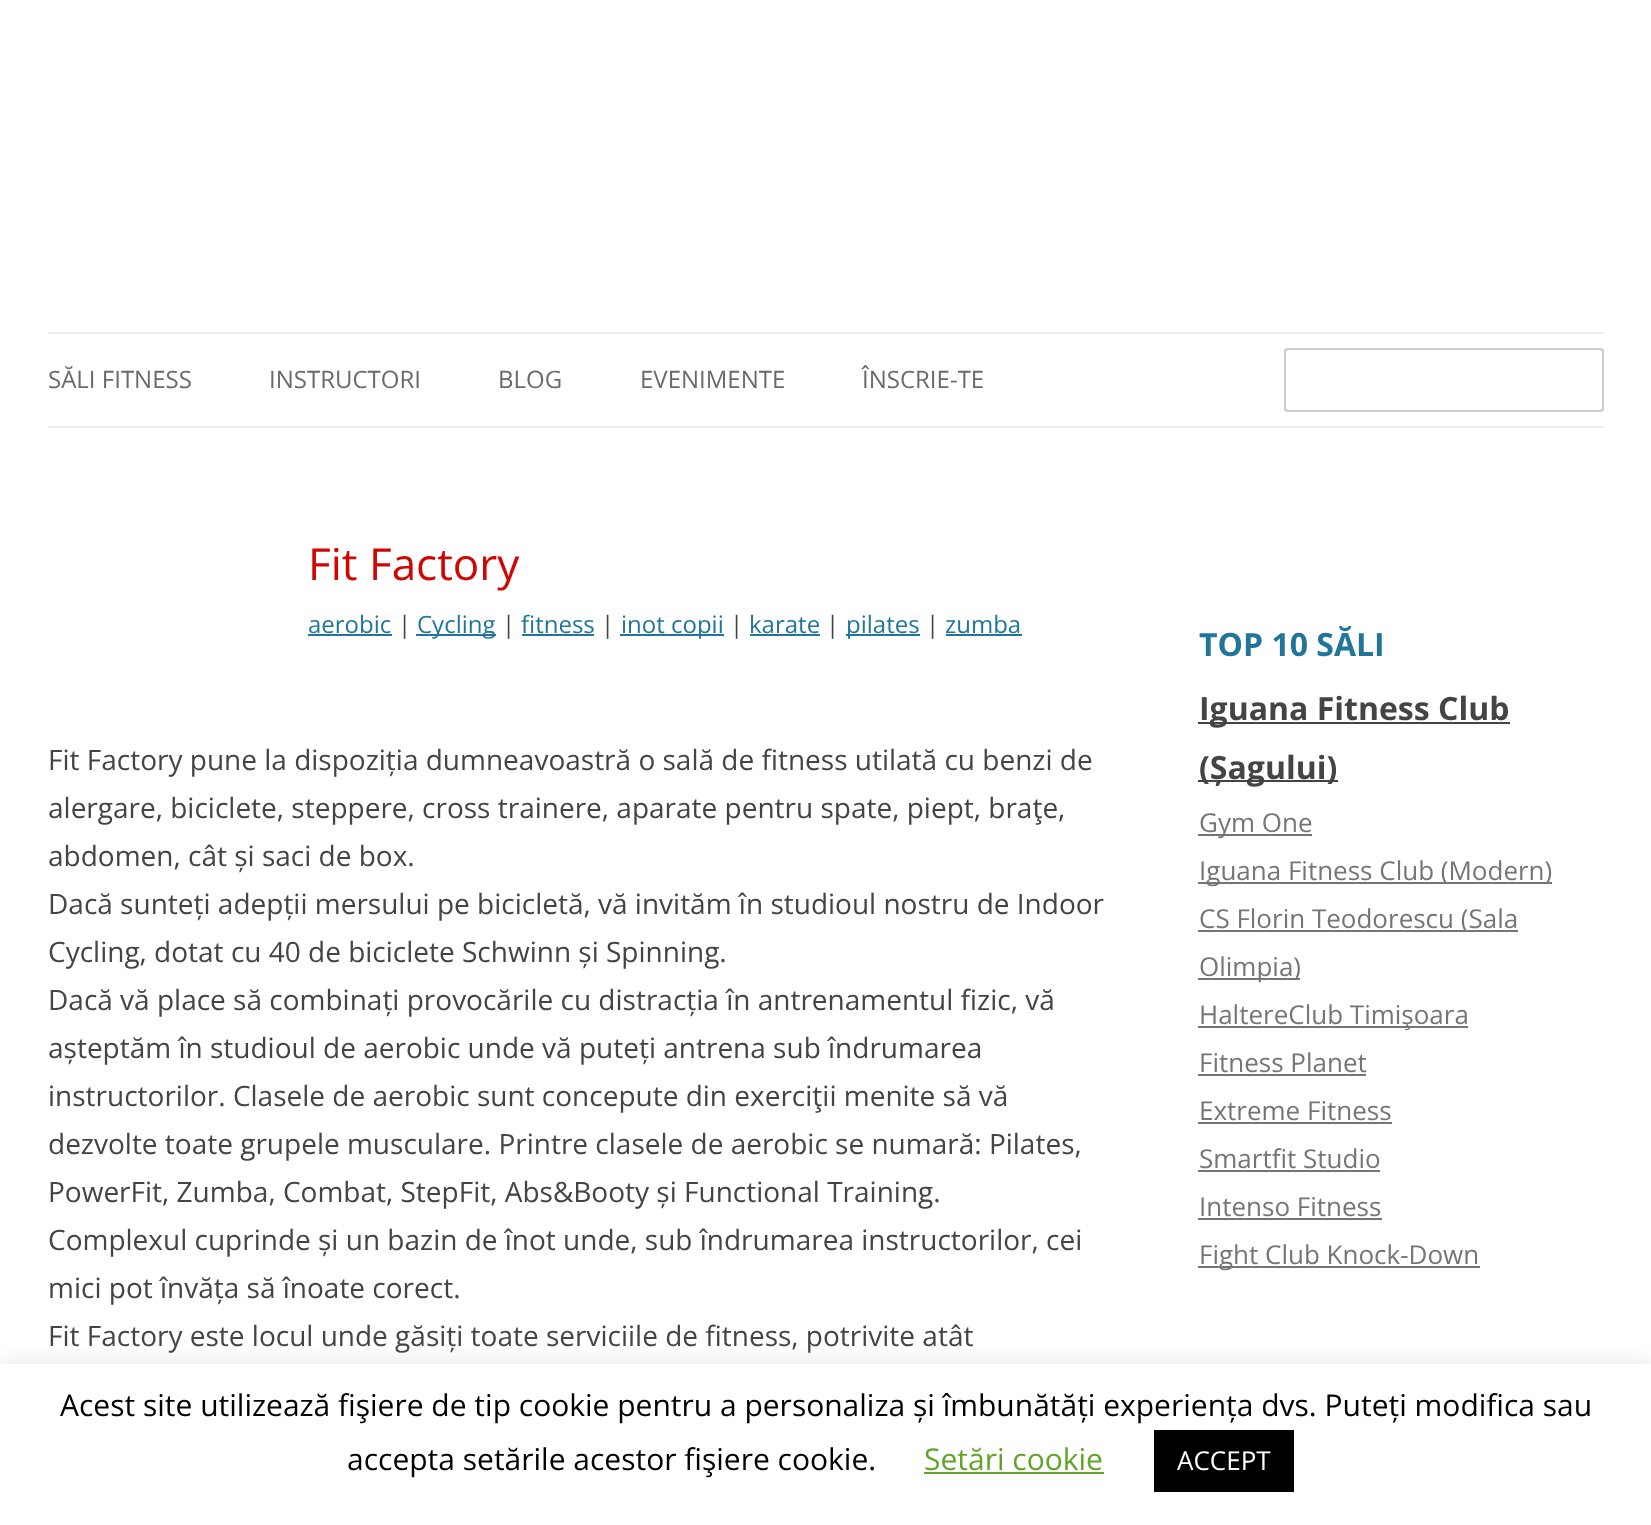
async function draw(canvas) {
  canvas.width = 1651;
  canvas.height = 1525;
  const ctx = canvas.getContext('2d');
  ctx.miterLimit = 4;
  ctx.fontKerning = 'normal';
  function label(s, x, y, font, color) {
    ctx.font = font;
    ctx.fillStyle = color;
    ctx.fillText(s, x, y);
  }
  function rect(x, y, w, h, color) {
    ctx.fillStyle = color;
    ctx.fillRect(x, y, w, h);
  }

  rect(0, 0, 1651, 1525, '#fff');
  rect(48, 332, 1556, 2, '#ededed');
  rect(48, 426, 1556, 2, '#ededed');
  label('SĂLI FITNESS', 48, 388, '24px Open Sans', '#6a6a6a');
  label('INSTRUCTORI', 269, 388, '24px Open Sans', '#6a6a6a');
  label('BLOG', 498, 388, '24px Open Sans', '#6a6a6a');
  label('EVENIMENTE', 640, 388, '24px Open Sans', '#6a6a6a');
  label('ÎNSCRIE-TE', 862, 388, '24px Open Sans', '#6a6a6a');
  ctx.beginPath();
  ctx.roundRect(1285, 349, 318, 62, 3);
  ctx.strokeStyle = '#ccc';
  ctx.lineWidth = 2;
  ctx.stroke();
  label('Fit Factory', 308, 580, '44px Open Sans', '#cf0601');
  label('aerobic', 308, 633, '24px Open Sans', '#21759b');
  rect(308, 634, 84, 2, '#21759b');
  label('|', 398, 633, '24px Open Sans', '#444');
  rect(416, 634, 80, 2, '#21759b');
  label('Cycling', 417, 633, '24px Open Sans', '#21759b');
  label('|', 502, 633, '24px Open Sans', '#444');
  label('fitness', 521, 633, '24px Open Sans', '#21759b');
  rect(522, 634, 72, 2, '#21759b');
  label('|', 601, 633, '24px Open Sans', '#444');
  rect(620, 634, 104, 2, '#21759b');
  label('inot copii', 621, 633, '24px Open Sans', '#21759b');
  label('|', 730, 633, '24px Open Sans', '#444');
  label('karate', 749, 633, '24px Open Sans', '#21759b');
  rect(750, 634, 70, 2, '#21759b');
  label('|', 826, 633, '24px Open Sans', '#444');
  rect(846, 634, 74, 2, '#21759b');
  label('pilates', 846, 633, '24px Open Sans', '#21759b');
  label('|', 926, 633, '24px Open Sans', '#444');
  label('zumba', 945, 633, '24px Open Sans', '#21759b');
  rect(946, 634, 76, 2, '#21759b');
  label('Fit Factory pune la dispoziția dumneavoastră o sală de fitness utilată cu benzi de', 48, 770, '28px Open Sans', '#444');
  label('alergare, biciclete, steppere, cross trainere, aparate pentru spate, piept, braţe,', 48, 818, '28px Open Sans', '#444');
  label('abdomen, cât și saci de box.', 48, 866, '28px Open Sans', '#444');
  label('Dacă sunteți adepții mersului pe bicicletă, vă invităm în studioul nostru de Indoor', 48, 914, '28px Open Sans', '#444');
  label('Cycling, dotat cu 40 de biciclete Schwinn și Spinning.', 48, 962, '28px Open Sans', '#444');
  label('Dacă vă place să combinați provocările cu distracția în antrenamentul fizic, vă', 48, 1010, '28px Open Sans', '#444');
  label('așteptăm în studioul de aerobic unde vă puteți antrena sub îndrumarea', 48, 1058, '28px Open Sans', '#444');
  label('instructorilor. Clasele de aerobic sunt concepute din exerciţii menite să vă', 48, 1106, '28px Open Sans', '#444');
  label('dezvolte toate grupele musculare. Printre clasele de aerobic se numară: Pilates,', 48, 1154, '28px Open Sans', '#444');
  label('PowerFit, Zumba, Combat, StepFit, Abs&Booty și Functional Training.', 48, 1202, '28px Open Sans', '#444');
  label('Complexul cuprinde și un bazin de înot unde, sub îndrumarea instructorilor, cei', 48, 1250, '28px Open Sans', '#444');
  label('mici pot învăța să înoate corect.', 48, 1298, '28px Open Sans', '#444');
  label('Fit Factory este locul unde găsiți toate serviciile de fitness, potrivite atât', 48, 1346, '28px Open Sans', '#444');
  label('TOP 10 SĂLI', 1199, 656, 'bold 32px Open Sans', '#21759b');
  rect(1198, 722, 312, 2, '#444');
  label('Iguana Fitness Club', 1199, 720, 'bold 32px Open Sans', '#444');
  rect(1198, 780, 140, 2, '#444');
  label('(Șagului)', 1199, 779, 'bold 32px Open Sans', '#444');
  rect(1198, 834, 114, 2, '#757575');
  label('Gym One', 1199, 832, '26px Open Sans', '#757575');
  rect(1198, 882, 354, 2, '#757575');
  label('Iguana Fitness Club (Modern)', 1199, 880, '26px Open Sans', '#757575');
  rect(1198, 930, 320, 2, '#757575');
  label('CS Florin Teodorescu (Sala', 1199, 928, '26px Open Sans', '#757575');
  rect(1198, 978, 102, 2, '#757575');
  label('Olimpia)', 1199, 976, '26px Open Sans', '#757575');
  rect(1198, 1026, 270, 2, '#757575');
  label('HaltereClub Timişoara', 1199, 1024, '26px Open Sans', '#757575');
  label('Fitness Planet', 1199, 1072, '26px Open Sans', '#757575');
  rect(1198, 1074, 168, 2, '#757575');
  label('Extreme Fitness', 1199, 1120, '26px Open Sans', '#757575');
  rect(1198, 1122, 194, 2, '#757575');
  label('Smartfit Studio', 1199, 1168, '26px Open Sans', '#757575');
  rect(1198, 1170, 182, 2, '#757575');
  label('Intenso Fitness', 1199, 1216, '26px Open Sans', '#757575');
  rect(1198, 1218, 184, 2, '#757575');
  rect(1198, 1266, 282, 2, '#757575');
  label('Fight Club Knock-Down', 1199, 1264, '26px Open Sans', '#757575');
  ctx.fillStyle = '#acabab4d';
  ctx.filter = 'blur(10px)';
  ctx.beginPath();
  ctx.rect(0, 1362, 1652, 162);
  ctx.fill();
  ctx.filter = 'none';
  rect(0, 1364, 1651, 161, '#fff');
  label('Acest site utilizează fişiere de tip cookie pentru a personaliza și îmbunătăți experiența dvs. Puteți modifica sau', 60, 1416, '30px Open Sans', '#000');
  label('accepta setările acestor fişiere cookie.', 347, 1470, '30px Open Sans', '#000');
  label('Setări cookie', 924, 1470, '30px Open Sans', '#62a329');
  rect(924, 1472, 180, 2, '#62a329');
  rect(1154, 1430, 140, 62, '#000');
  label('ACCEPT', 1177, 1470, '26px Open Sans', '#fff');
}

draw(document.querySelector('canvas'));
